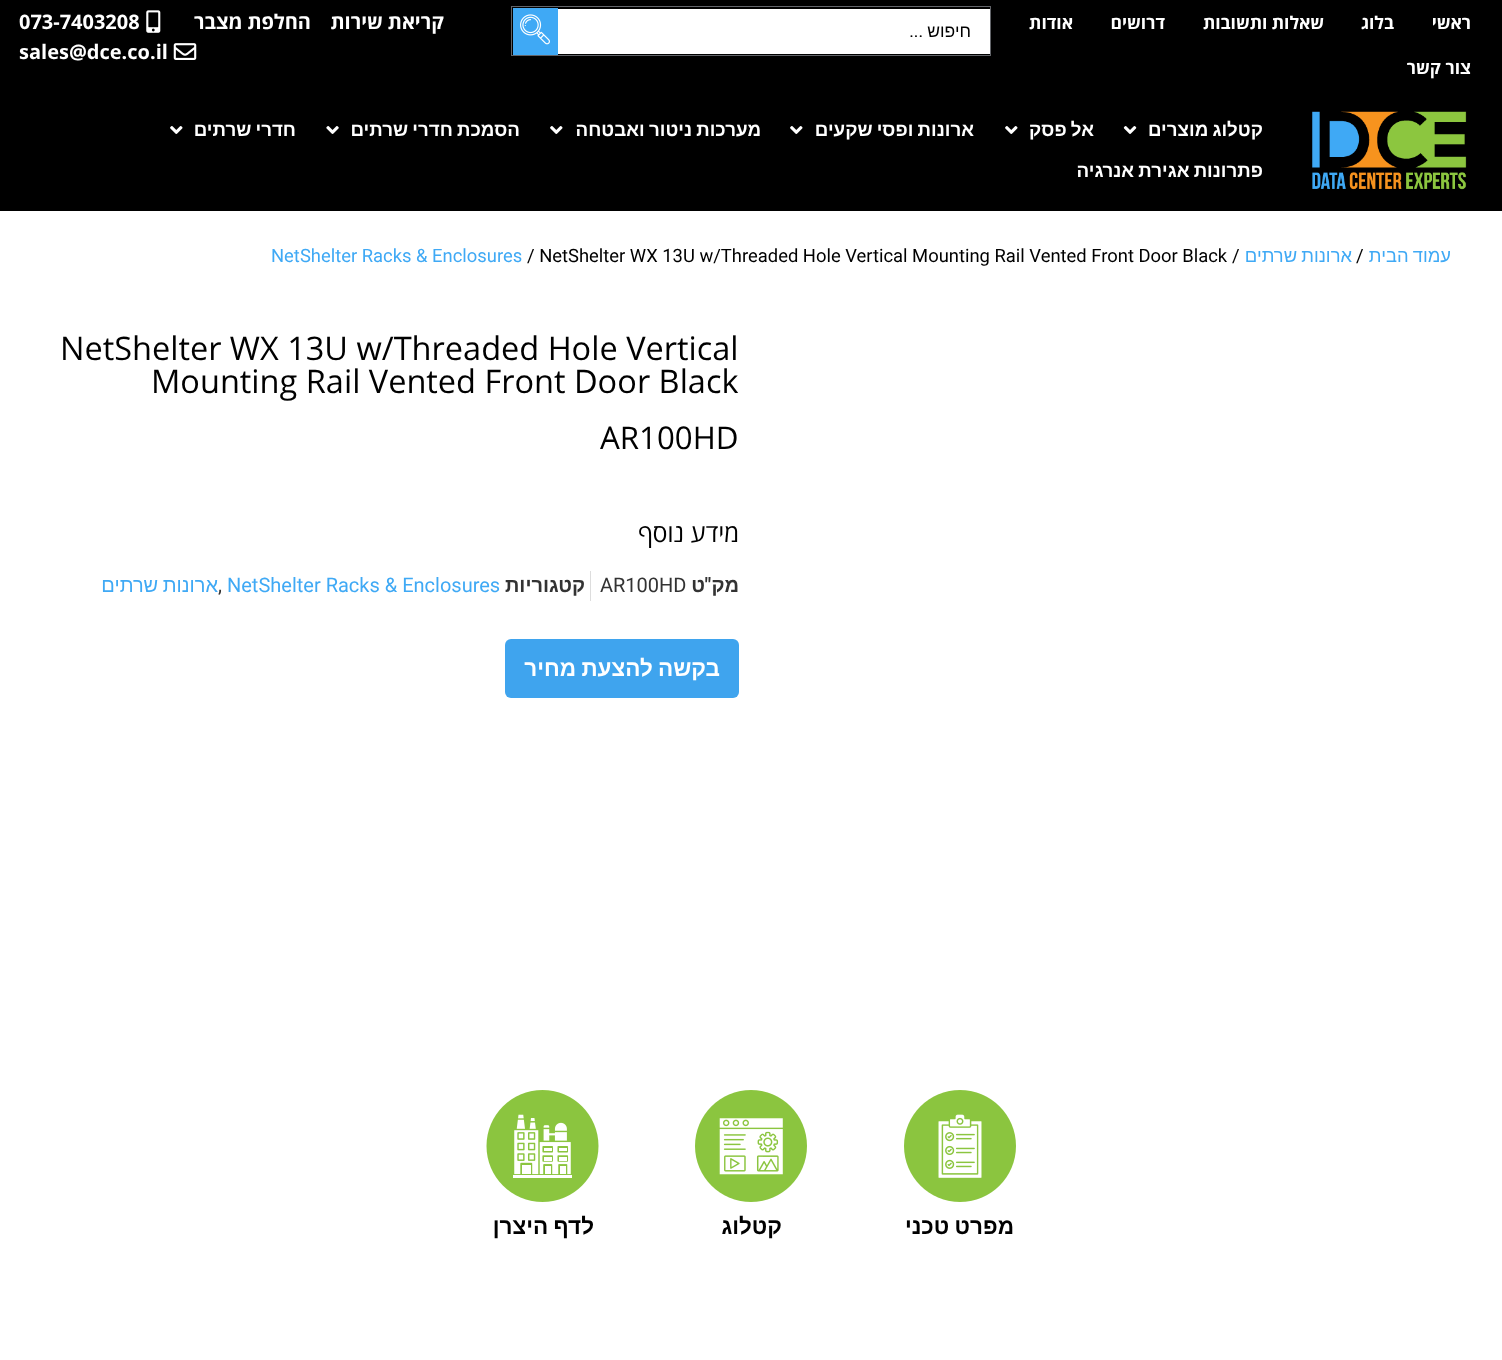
async function draw(canvas) {
  canvas.width = 1502;
  canvas.height = 1360;
  const ctx = canvas.getContext('2d');
  ctx.miterLimit = 4;
  ctx.fontKerning = 'normal';
  function label(s, x, y, font, color) {
    ctx.font = font;
    ctx.fillStyle = color;
    ctx.fillText(s, x, y);
  }
  function rect(x, y, w, h, color) {
    ctx.fillStyle = color;
    ctx.fillRect(x, y, w, h);
  }
  function roundedRect(x, y, w, h, r, color) {
    ctx.fillStyle = color;
    ctx.beginPath();
    ctx.roundRect(x, y, w, h, r);
    ctx.fill();
  }
  async function image(src, x, y, w, h) {
    const img = new Image();
    img.src = src;
    await img.decode();
    ctx.drawImage(img, x, y, w, h);
  }

  rect(0, 0, 1502, 1360, '#fff');
  rect(0, 0, 1502, 211, '#000');
  label('073-7403208', 19, 29, 'bold 20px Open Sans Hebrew', '#fff');
  await image('assets/img1.png', 146, 10, 15, 23);
  ctx.direction = 'rtl';
  label('החלפת מצבר', 311, 29, 'bold 20px Open Sans Hebrew', '#fff');
  label('קריאת שירות', 444, 29, 'bold 20px Open Sans Hebrew', '#fff');
  ctx.direction = 'ltr';
  label('sales@dce.co.il', 19, 59, 'bold 20px Open Sans Hebrew', '#fff');
  await image('assets/img2.png', 173, 43, 24, 17);
  ctx.strokeStyle = '#626469';
  ctx.strokeRect(511.5, 6.5, 479, 49);
  rect(513, 8, 45, 47, '#3fa9f5');
  await image('assets/img3.png', 520, 14, 30, 31);
  rect(558, 9, 432, 45, '#fff');
  ctx.direction = 'rtl';
  label('...', 923, 37, '17.5px Roboto', '#000');
  label('חיפוש', 971, 37, '17.5px Liberation Sans', '#000');
  label('אודות', 1073, 29, 'bold 17.5px Open Sans Hebrew', '#fff');
  label('דרושים', 1165, 29, 'bold 17.5px Open Sans Hebrew', '#fff');
  label('שאלות ותשובות', 1324, 29, 'bold 17.5px Open Sans Hebrew', '#fff');
  label('בלוג', 1394, 29, 'bold 17.5px Open Sans Hebrew', '#fff');
  label('ראשי', 1471, 29, 'bold 17.5px Open Sans Hebrew', '#fff');
  label('צור קשר', 1471, 74, 'bold 17.5px Open Sans Hebrew', '#fff');
  await image('assets/img4.png', 170, 126, 13, 8);
  ctx.wordSpacing = '-1px';
  label('חדרי שרתים', 296, 136, 'bold 18.75px Liberation Sans', '#fff');
  await image('assets/img5.png', 326, 126, 13, 8);
  label('הסמכת חדרי שרתים', 520, 136, 'bold 18.75px Liberation Sans', '#fff');
  await image('assets/img4.png', 550, 126, 13, 8);
  label('מערכות ניטור ואבטחה', 761, 136, 'bold 18.75px Liberation Sans', '#fff');
  await image('assets/img4.png', 790, 126, 13, 8);
  label('ארונות ופסי שקעים', 974, 136, 'bold 18.75px Liberation Sans', '#fff');
  await image('assets/img4.png', 1005, 126, 13, 8);
  label('אל פסק', 1094, 136, 'bold 18.75px Liberation Sans', '#fff');
  await image('assets/img6.png', 1123, 126, 14, 8);
  label('קטלוג מוצרים', 1263, 136, 'bold 18.75px Liberation Sans', '#fff');
  label('פתרונות אגירת אנרגיה', 1263, 177, 'bold 18.75px Liberation Sans', '#fff');
  await image('assets/img7.png', 1312, 111, 155, 79);
  ctx.wordSpacing = '0px';
  ctx.direction = 'ltr';
  label('NetShelter Racks & Enclosures', 271, 262, '18.4px Roboto', '#3fa9f5');
  label('/ NetShelter WX 13U w/Threaded Hole Vertical Mounting Rail Vented Front Door Black', 527, 262, '18.4px Roboto', '#000');
  label('/', 1232, 262, '18.4px Roboto', '#000');
  ctx.wordSpacing = '-1px';
  ctx.direction = 'rtl';
  label('ארונות שרתים', 1352, 262, '18.4px Liberation Sans', '#3fa9f5');
  ctx.wordSpacing = '0px';
  ctx.direction = 'ltr';
  label('/', 1356, 262, '18.4px Roboto', '#000');
  ctx.wordSpacing = '-1px';
  ctx.direction = 'rtl';
  label('עמוד הבית', 1451, 262, '18.4px Liberation Sans', '#3fa9f5');
  ctx.wordSpacing = '0px';
  ctx.direction = 'ltr';
  label('NetShelter WX 13U w/Threaded Hole Vertical', 60, 360, '32.5px Open Sans Hebrew', '#000');
  label('Mounting Rail Vented Front Door Black', 151, 393, '32.5px Open Sans Hebrew', '#000');
  label('AR100HD', 600, 449, '31.25px Open Sans Hebrew', '#000');
  ctx.direction = 'rtl';
  label('מידע נוסף', 739, 542, '25px Open Sans Hebrew', '#000');
  ctx.wordSpacing = '-1px';
  label('ארונות שרתים', 218, 592, '20px Liberation Sans', '#3fa9f5');
  ctx.wordSpacing = '0px';
  ctx.direction = 'ltr';
  label(',', 218, 592, '20px Roboto', '#333');
  label('NetShelter Racks & Enclosures', 227, 592, '20px Roboto', '#3fa9f5');
  ctx.direction = 'rtl';
  label('קטגוריות', 585, 592, 'bold 20px Liberation Sans', '#333');
  rect(590, 571, 1, 30, '#ddd');
  ctx.direction = 'ltr';
  label('AR100HD', 600, 592, '20px Roboto', '#333');
  ctx.direction = 'rtl';
  label('ט', 705, 592, 'bold 20px Liberation Sans', '#333');
  label('"', 711, 592, 'bold 20px Roboto', '#333');
  label('מק', 739, 592, 'bold 20px Liberation Sans', '#333');
  roundedRect(505, 639, 234, 59, 6, '#3fa4ee');
  ctx.wordSpacing = '-1px';
  label('בקשה להצעת מחיר', 720, 676, 'bold 22.5px Liberation Sans', '#fff');
  await image('assets/img8.png', 486, 1090, 113, 112);
  label('לדף היצרן', 594, 1234, 'bold 22.5px Liberation Sans', '#000');
  await image('assets/img9.png', 695, 1090, 112, 112);
  ctx.wordSpacing = '0px';
  label('קטלוג', 782, 1234, 'bold 22.5px Liberation Sans', '#000');
  await image('assets/img10.png', 904, 1090, 112, 112);
  ctx.wordSpacing = '-1px';
  label('מפרט טכני', 1014, 1234, 'bold 22.5px Liberation Sans', '#000');
}

draw(document.querySelector('canvas'));
